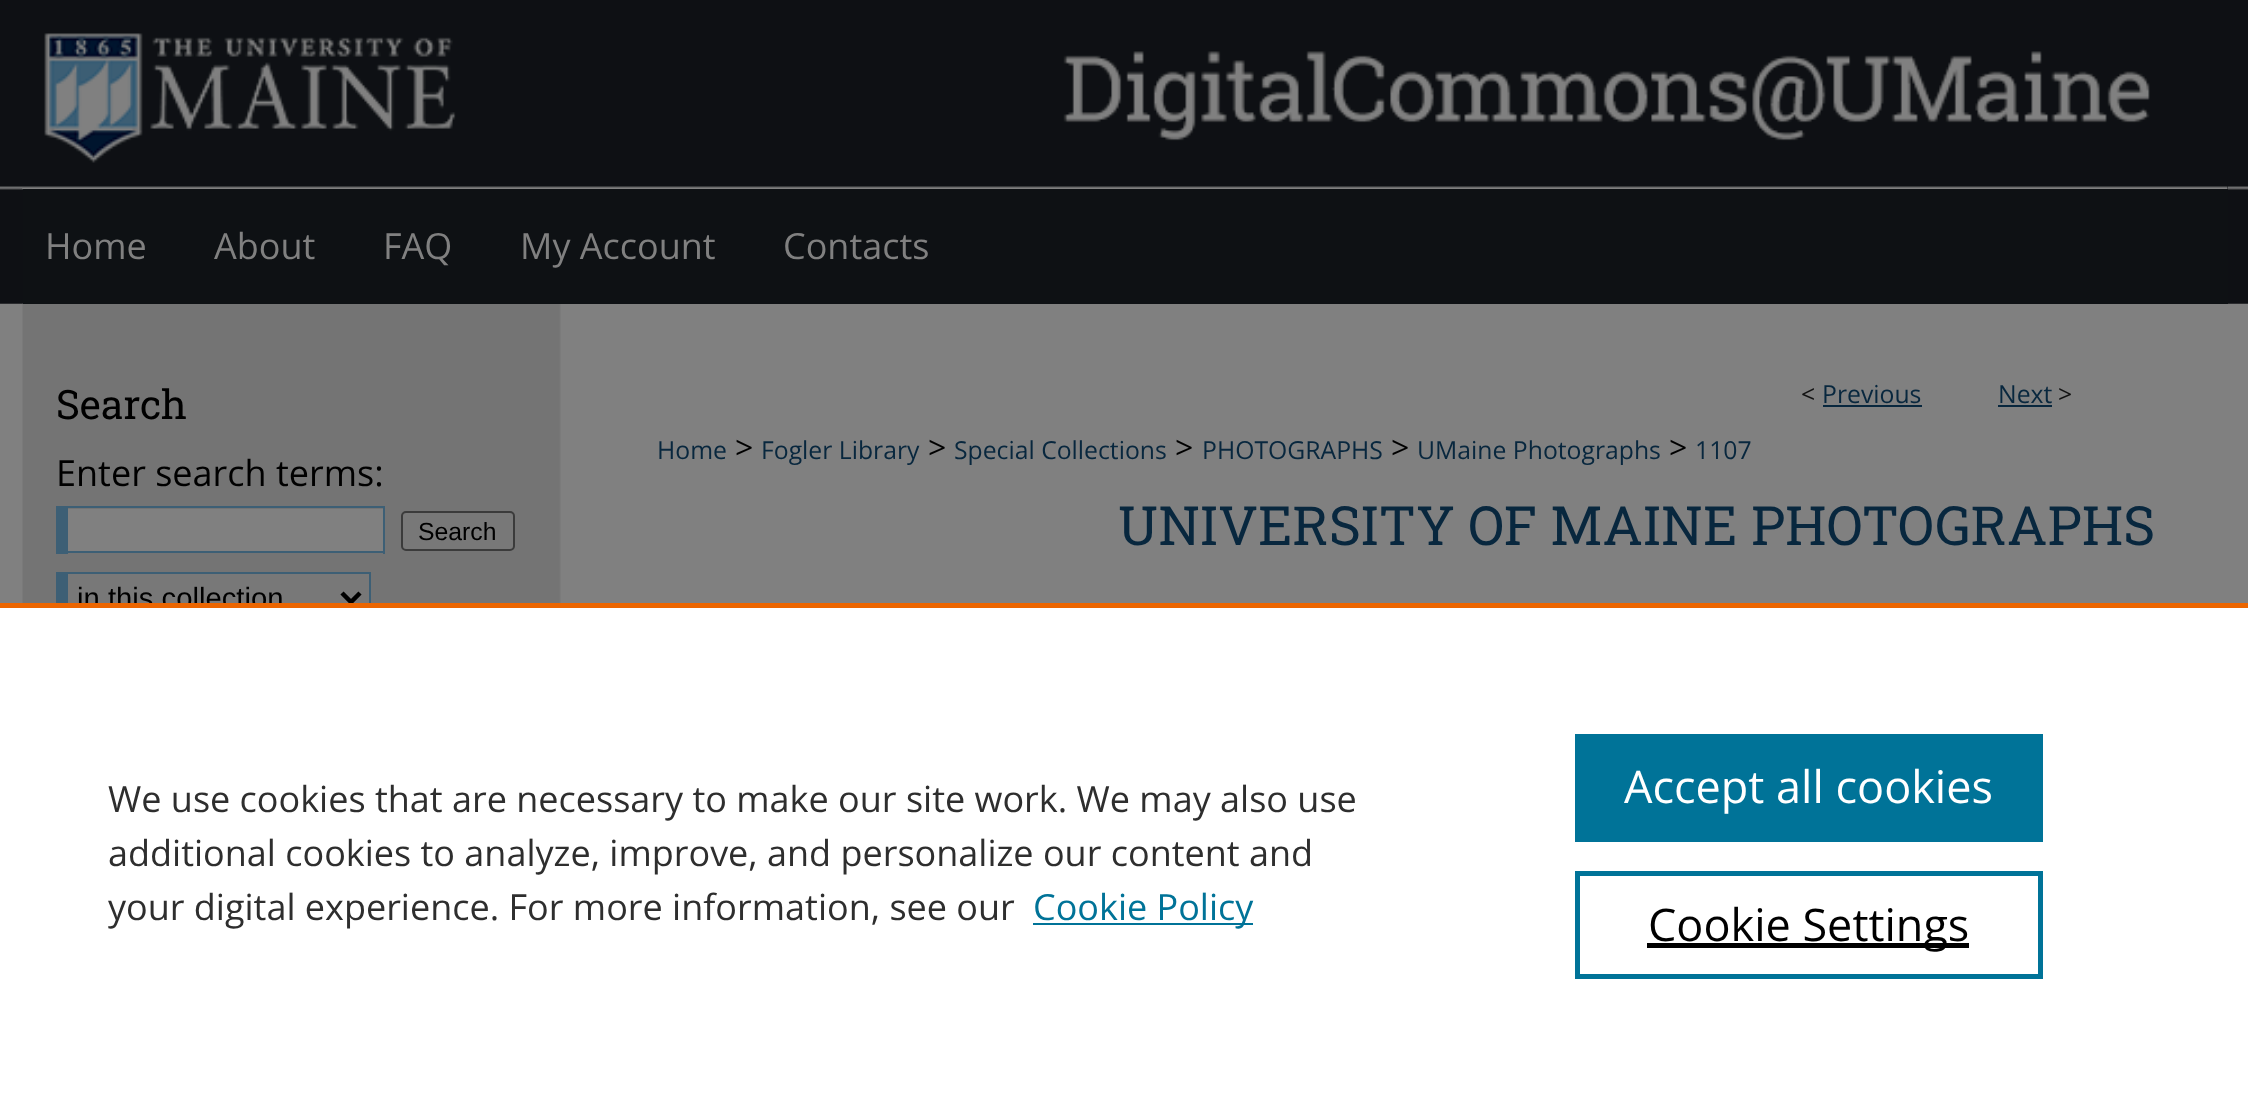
async function draw(canvas) {
  canvas.width = 2248;
  canvas.height = 1097;
  const ctx = canvas.getContext('2d');
  ctx.miterLimit = 4;
  ctx.fontKerning = 'normal';
  function label(s, x, y, font, color) {
    ctx.font = font;
    ctx.fillStyle = color;
    ctx.fillText(s, x, y);
  }
  function rect(x, y, w, h, color) {
    ctx.fillStyle = color;
    ctx.fillRect(x, y, w, h);
  }
  async function image(src, x, y, w, h) {
    const img = new Image();
    img.src = src;
    await img.decode();
    ctx.drawImage(img, x, y, w, h);
  }
  let path;

  rect(0, 0, 2248, 1097, '#808080');
  await image('assets/img1.png', 0, 0, 2248, 304);
  await image('assets/img3.png', 22, 303, 2206, 300);
  rect(23, 186, 2205, 118, '#0e1114');
  await image('assets/img2.png', 22, 33, 2206, 156);
  rect(22, 188, 1, 1, '#787878');
  label('Home', 45, 259, '36px Open Sans', '#808080');
  label('About', 214, 259, '36px Open Sans', '#808080');
  label('FAQ', 383, 259, '36px Open Sans', '#808080');
  label('My Account', 520, 259, '36px Open Sans', '#808080');
  label('Contacts', 783, 259, '36px Open Sans', '#808080');
  label('Search', 56, 419, '40.5px Roboto Slab', '#000');
  label('Enter search terms:', 56, 486, '36px Open Sans', '#000');
  rect(68, 509, 315, 42, '#808080');
  rect(68, 506, 317, 2, '#3d5f75');
  rect(383, 506, 2, 48, '#3d5f75');
  rect(68, 551, 317, 2, '#3d5f75');
  rect(56, 506, 12, 48, '#3d5f75');
  ctx.fillStyle = '#787878';
  ctx.beginPath();
  ctx.roundRect(402, 512, 112, 38, 4);
  ctx.fill();
  ctx.strokeStyle = '#3b3b3b';
  ctx.lineWidth = 2;
  ctx.stroke();
  label('Search', 418, 540, '24.75px Liberation Sans', '#000');
  rect(68, 574, 301, 29, '#787878');
  rect(68, 572, 303, 2, '#3d5f75');
  rect(369, 572, 2, 31, '#3d5f75');
  rect(56, 572, 12, 31, '#3d5f75');
  path = new Path2D('M342 593L351 602L360 593');
  ctx.strokeStyle = '#000';
  ctx.lineWidth = 4.5;
  ctx.stroke(path);
  label('in this collection', 77, 608, '29.25px Liberation Sans', '#000');
  label('<', 1801, 403, '24.75px Open Sans', '#111');
  label('Previous', 1822, 403, '24.75px Open Sans', '#08273e');
  rect(1823, 405, 99, 2, '#08273e');
  label('Next', 1998, 403, '24.75px Open Sans', '#08273e');
  rect(1998, 405, 54, 2, '#08273e');
  label('>', 2058, 403, '24.75px Open Sans', '#111');
  label('Home', 657, 459, '24.75px Open Sans', '#08273e');
  label('>', 735, 459, '32px Open Sans', '#000');
  label('Fogler Library', 761, 459, '24.75px Open Sans', '#08273e');
  label('>', 928, 459, '32px Open Sans', '#000');
  label('Special Collections', 954, 459, '24.75px Open Sans', '#08273e');
  label('>', 1175, 459, '32px Open Sans', '#000');
  label('PHOTOGRAPHS', 1202, 459, '24.75px Open Sans', '#08273e');
  label('>', 1391, 459, '32px Open Sans', '#000');
  label('UMaine Photographs', 1417, 459, '24.75px Open Sans', '#08273e');
  label('>', 1669, 459, '32px Open Sans', '#000');
  label('1107', 1695, 459, '24.75px Open Sans', '#08273e');
  label('UNIVERSITY OF MAINE PHOTOGRAPHS', 1118, 545, '54px Roboto Slab', '#08273e');
  rect(0, 608, 2248, 489, '#fff');
  rect(0, 603, 2248, 5, '#eb6500');
  label('We use cookies that are necessary to make our site work. We may also use', 108, 812, '36px Open Sans', '#2e2e2e');
  label('additional cookies to analyze, improve, and personalize our content and', 108, 866, '36px Open Sans', '#2e2e2e');
  label('your digital experience. For more information, see our', 108, 920, '36px Open Sans', '#2e2e2e');
  rect(1033, 923, 220, 2, '#007398');
  label('Cookie Policy', 1033, 920, '36px Open Sans', '#007398');
  rect(1575, 734, 468, 108, '#007398');
  label('Accept all cookies', 1624, 803, '45px Open Sans', '#fff');
  ctx.strokeStyle = '#007398';
  ctx.lineWidth = 5;
  ctx.strokeRect(1577.5, 873.5, 463, 103);
  rect(1647, 943, 322, 5, '#000');
  label('Cookie Settings', 1648, 941, '45px Open Sans', '#000');
}

draw(document.querySelector('canvas'));
